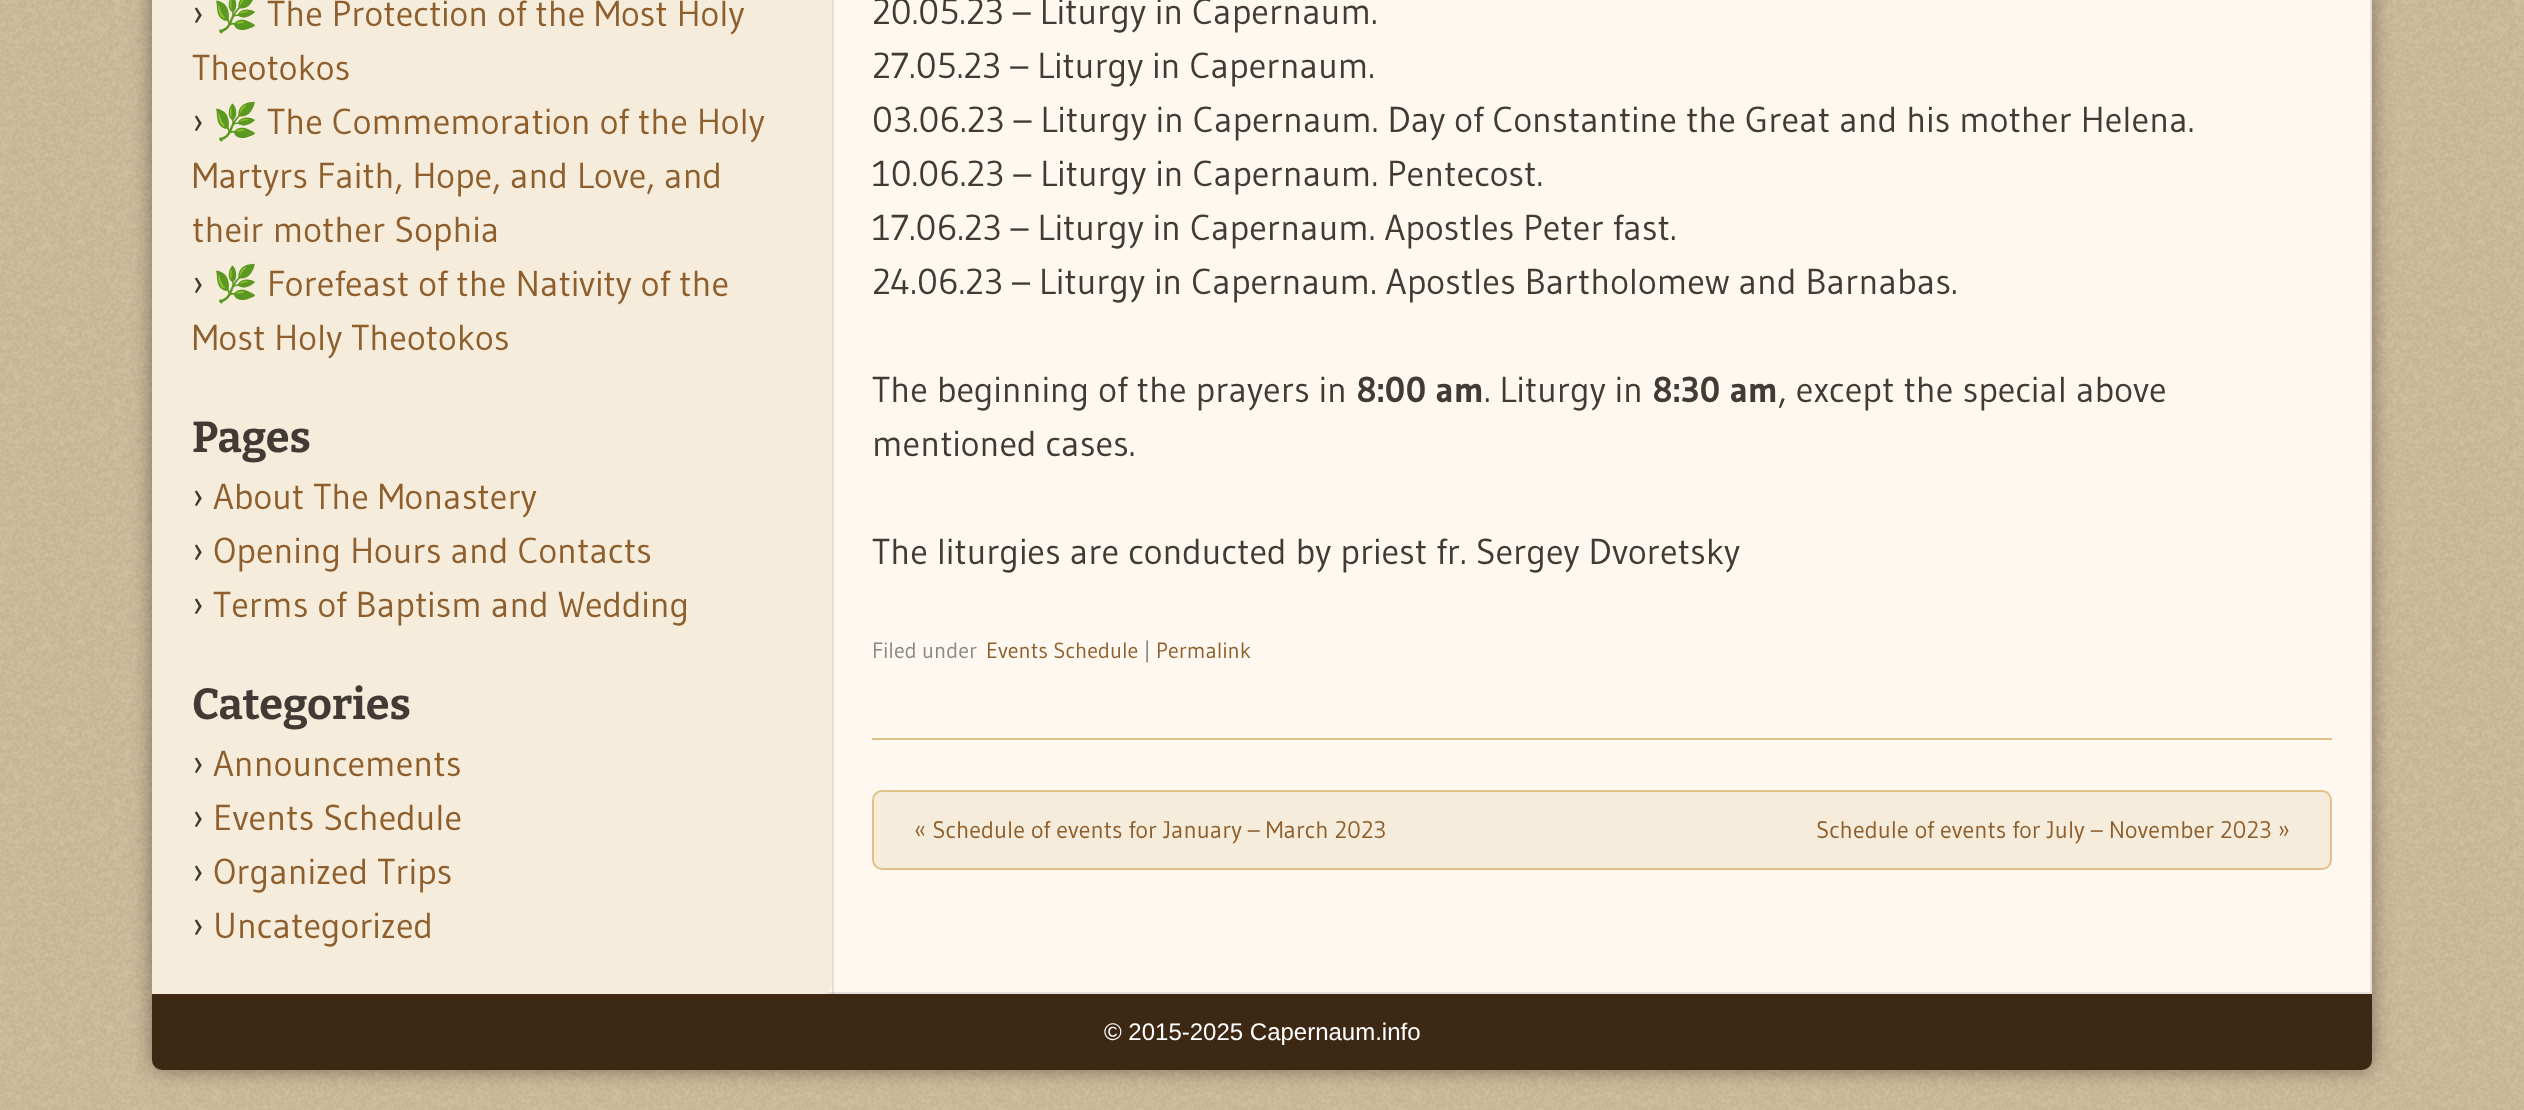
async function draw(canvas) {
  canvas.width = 2524;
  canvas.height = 1110;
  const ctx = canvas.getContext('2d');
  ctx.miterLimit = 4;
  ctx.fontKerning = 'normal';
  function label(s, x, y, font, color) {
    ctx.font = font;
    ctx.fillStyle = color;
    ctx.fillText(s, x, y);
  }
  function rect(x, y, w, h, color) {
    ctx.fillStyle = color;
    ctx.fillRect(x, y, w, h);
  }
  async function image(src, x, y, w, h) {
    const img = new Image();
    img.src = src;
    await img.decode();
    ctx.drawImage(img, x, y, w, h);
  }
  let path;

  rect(0, 0, 2524, 1110, '#d1bd9d');
  await image('assets/img1.png', 0, 0, 2524, 1110);
  ctx.fillStyle = '#00000066';
  ctx.filter = 'blur(10px)';
  ctx.beginPath();
  ctx.roundRect(152, -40, 2220, 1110, 10);
  ctx.fill();
  ctx.filter = 'none';
  rect(828, 0, 1542, 992, '#fff8f1');
  ctx.strokeStyle = '#e6dfd9';
  ctx.lineWidth = 2;
  ctx.strokeRect(153, -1, 2218, 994);
  ctx.save();
  ctx.beginPath();
  ctx.rect(152, 0, 2220, 994);
  ctx.clip();
  ctx.fillStyle = '#0000001a';
  path = new Path2D('M152-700H832V994H152V996H834V-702H152Z');
  ctx.fill(path);
  ctx.restore();
  ctx.fillStyle = '#f6ecdb';
  path = new Path2D('M152-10H832V984C832 989.5 827.5 994 822 994H152Z');
  ctx.fill(path);
  label('›', 192, 26, '36px Gudea', '#413a35');
  label('🌿', 213, 26, '36px Noto Color Emoji', '#8e5f2d');
  label('The Protection of the Most Holy', 267, 26, '36px Gudea', '#8e5f2d');
  label('Theotokos', 192, 80, '36px Gudea', '#8e5f2d');
  label('›', 192, 134, '36px Gudea', '#413a35');
  label('🌿', 213, 134, '36px Noto Color Emoji', '#8e5f2d');
  label('The Commemoration of the Holy', 267, 134, '36px Gudea', '#8e5f2d');
  label('Martyrs Faith, Hope, and Love, and', 192, 188, '36px Gudea', '#8e5f2d');
  label('their mother Sophia', 192, 242, '36px Gudea', '#8e5f2d');
  label('›', 192, 296, '36px Gudea', '#413a35');
  label('🌿', 213, 296, '36px Noto Color Emoji', '#8e5f2d');
  label('Forefeast of the Nativity of the', 267, 296, '36px Gudea', '#8e5f2d');
  label('Most Holy Theotokos', 192, 350, '36px Gudea', '#8e5f2d');
  label('Pages', 192, 452, '100 43.25px Bitter', '#413a35');
  label('›', 192, 509, '36px Gudea', '#413a35');
  label('About The Monastery', 213, 509, '36px Gudea', '#8e5f2d');
  label('›', 192, 563, '36px Gudea', '#413a35');
  label('Opening Hours and Contacts', 213, 563, '36px Gudea', '#8e5f2d');
  label('›', 192, 617, '36px Gudea', '#413a35');
  label('Terms of Baptism and Wedding', 213, 617, '36px Gudea', '#8e5f2d');
  label('Categories', 192, 719, '100 43.25px Bitter', '#413a35');
  label('›', 192, 776, '36px Gudea', '#413a35');
  label('Announcements', 213, 776, '36px Gudea', '#8e5f2d');
  label('›', 192, 830, '36px Gudea', '#413a35');
  label('Events Schedule', 213, 830, '36px Gudea', '#8e5f2d');
  label('›', 192, 884, '36px Gudea', '#413a35');
  label('Organized Trips', 213, 884, '36px Gudea', '#8e5f2d');
  label('›', 192, 938, '36px Gudea', '#413a35');
  label('Uncategorized', 213, 938, '36px Gudea', '#8e5f2d');
  rect(872, 738, 1460, 2, '#e2c189');
  label('20.05.23 – Liturgy in Capernaum.', 872, 24, '36px Gudea', '#413a35');
  label('27.05.23 – Liturgy in Capernaum.', 872, 78, '36px Gudea', '#413a35');
  label('03.06.23 – Liturgy in Capernaum. Day of Constantine the Great and his mother Helena.', 872, 132, '36px Gudea', '#413a35');
  label('10.06.23 – Liturgy in Capernaum. Pentecost.', 872, 186, '36px Gudea', '#413a35');
  label('17.06.23 – Liturgy in Capernaum. Apostles Peter fast.', 872, 240, '36px Gudea', '#413a35');
  label('24.06.23 – Liturgy in Capernaum. Apostles Bartholomew and Barnabas.', 872, 294, '36px Gudea', '#413a35');
  label('The beginning of the prayers in', 872, 402, '36px Gudea', '#413a35');
  label('8:00 am', 1356, 402, 'bold 36px Gudea', '#413a35');
  label('. Liturgy in', 1484, 402, '36px Gudea', '#413a35');
  label('8:30 am', 1652, 402, 'bold 36px Gudea', '#413a35');
  label(', except the special above', 1778, 402, '36px Gudea', '#413a35');
  label('mentioned cases.', 872, 456, '36px Gudea', '#413a35');
  label('The liturgies are conducted by priest fr. Sergey Dvoretsky', 872, 564, '36px Gudea', '#413a35');
  label('Filed under', 872, 658, '22px Gudea', '#888');
  label('Events Schedule', 986, 658, '22px Gudea', '#8e5f2d');
  label('|', 1144, 658, '22px Gudea', '#888');
  label('Permalink', 1156, 658, '22px Gudea', '#8e5f2d');
  ctx.fillStyle = '#f6ecdb';
  ctx.beginPath();
  ctx.roundRect(873, 791, 1458, 78, 9);
  ctx.fill();
  ctx.strokeStyle = '#e2c189';
  ctx.stroke();
  label('« Schedule of events for January – March 2023', 914, 838, '24px Gudea', '#8e5f2d');
  label('Schedule of events for July – November 2023 »', 1816, 838, '24px Gudea', '#8e5f2d');
  ctx.fillStyle = '#3d2814';
  ctx.beginPath();
  ctx.roundRect(152, 994, 2220, 76, [0, 0, 10, 10]);
  ctx.fill();
  label('© 2015-2025 Capernaum.info', 1104, 1040, '24px Liberation Sans', '#fff');
}

draw(document.querySelector('canvas'));
